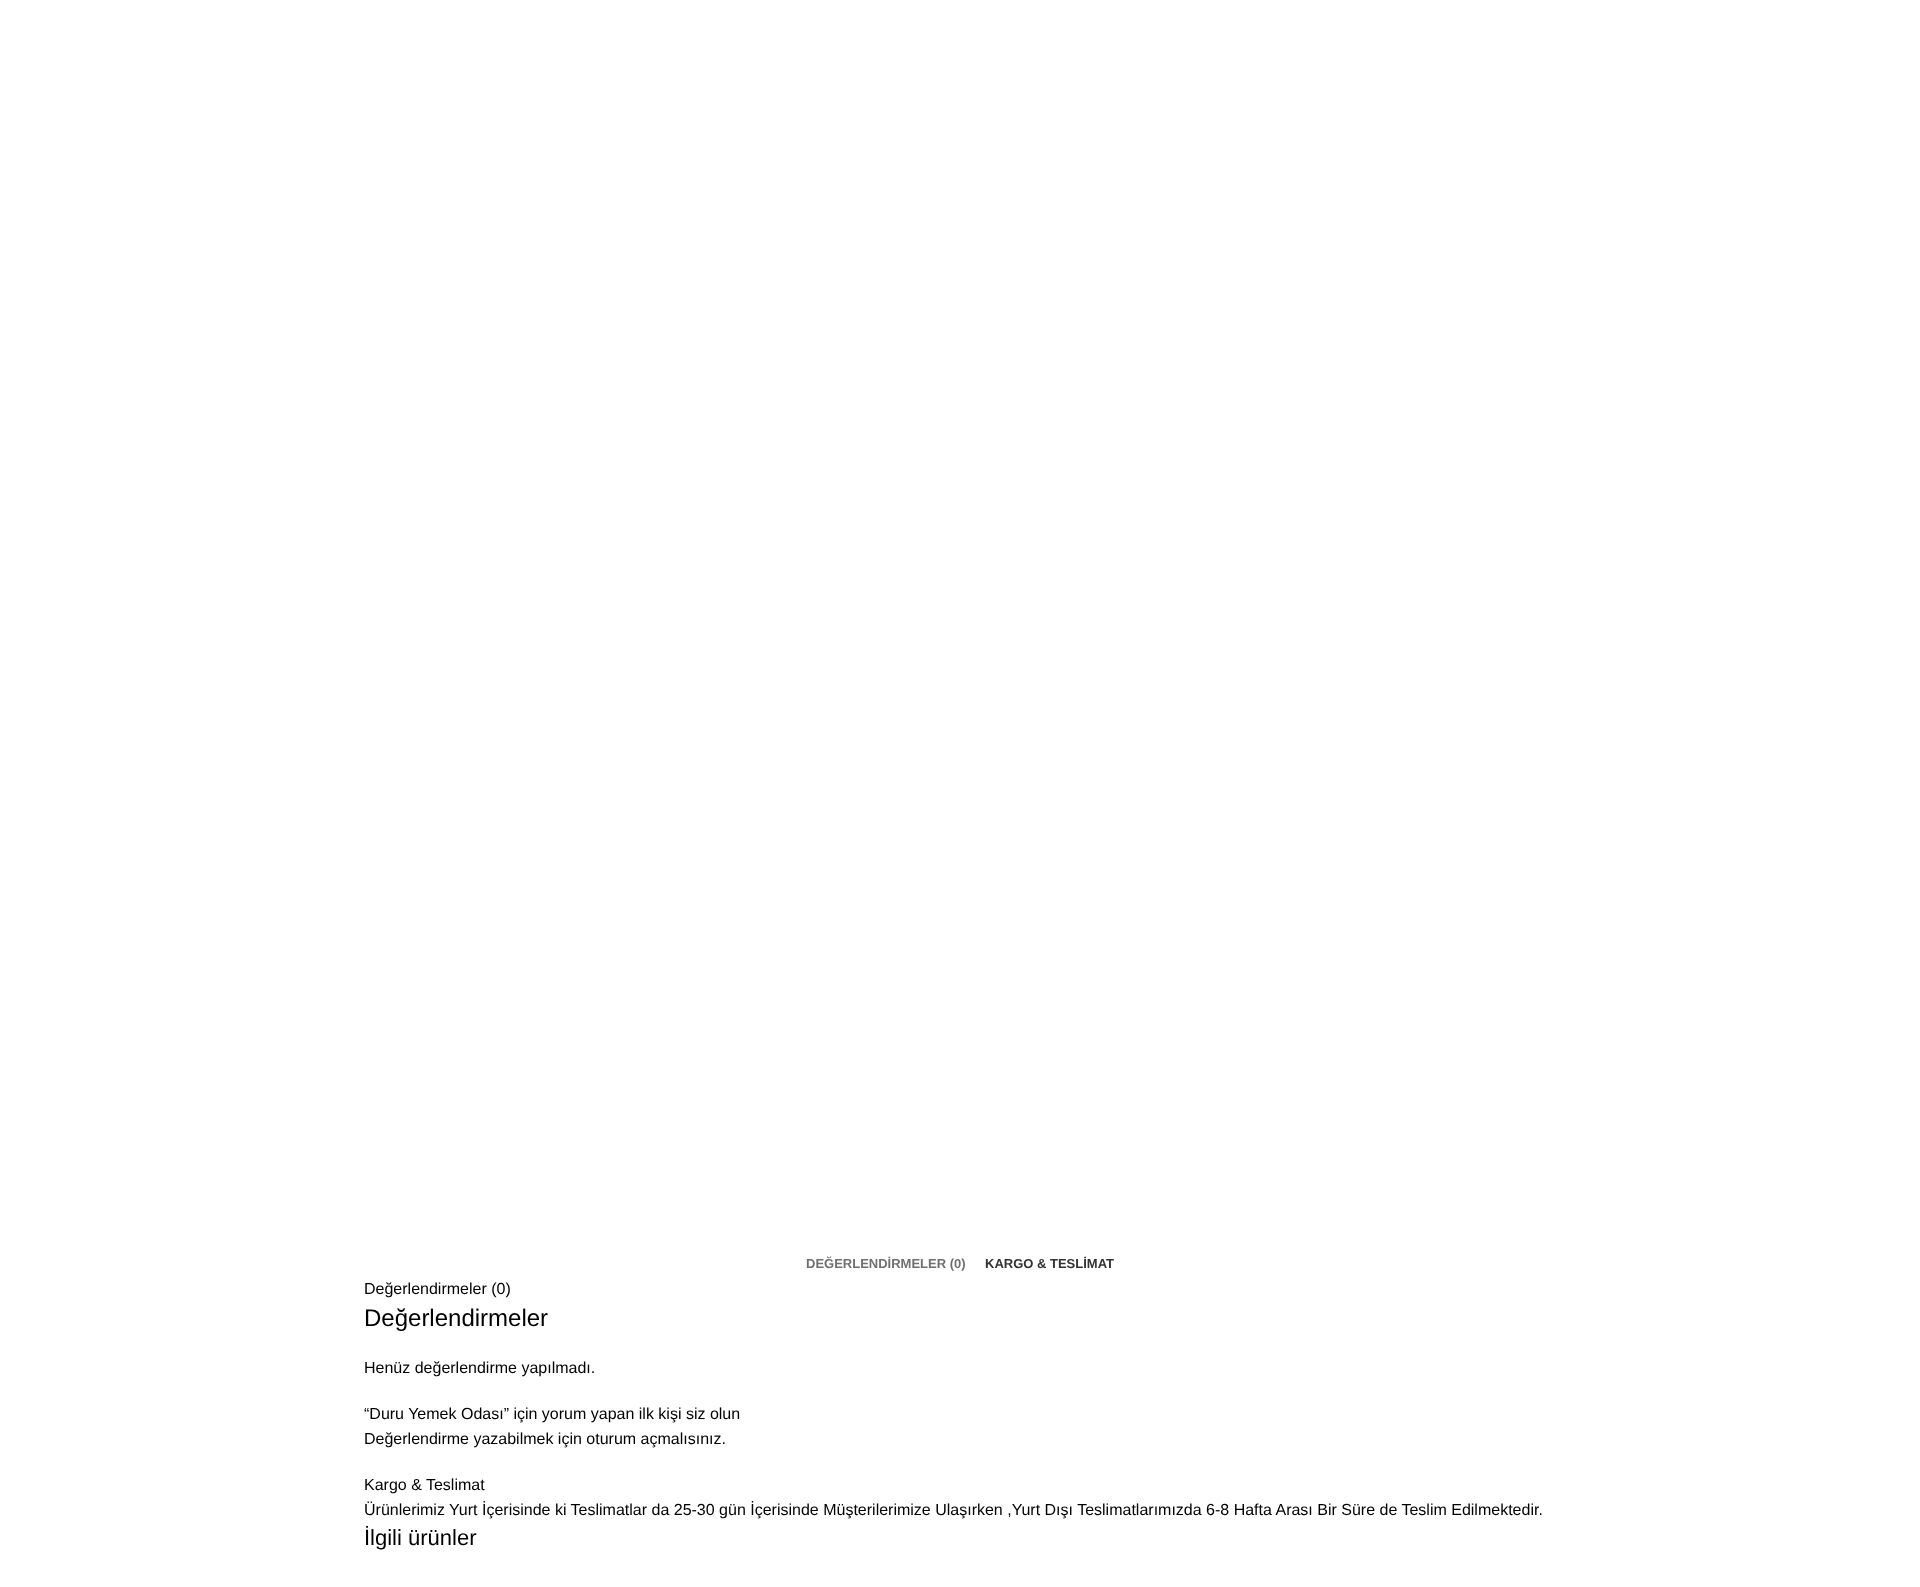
async function draw(canvas) {
  canvas.width = 1920;
  canvas.height = 1587;
  const ctx = canvas.getContext('2d');
  ctx.miterLimit = 4;
  ctx.fontKerning = 'normal';
  function label(s, x, y, font, color) {
    ctx.font = font;
    ctx.fillStyle = color;
    ctx.fillText(s, x, y);
  }
  function rect(x, y, w, h, color) {
    ctx.fillStyle = color;
    ctx.fillRect(x, y, w, h);
  }

  rect(0, 0, 1920, 1587, '#fff');
  label('DEĞERLENDİRMELER (0)', 806, 1268, 'bold 13px Liberation Sans', '#707070');
  label('KARGO & TESLİMAT', 985, 1268, 'bold 13px Liberation Sans', '#333');
  label('Değerlendirmeler (0)', 364, 1294, '16px Liberation Sans', '#000');
  label('Değerlendirmeler', 364, 1326, '24px Liberation Sans', '#000');
  label('Henüz değerlendirme yapılmadı.', 364, 1373, '16px Liberation Sans', '#000');
  label('“Duru Yemek Odası” için yorum yapan ilk kişi siz olun', 364, 1419, '16px Liberation Sans', '#000');
  label('Değerlendirme yazabilmek için oturum açmalısınız.', 364, 1444, '16px Liberation Sans', '#000');
  label('Kargo & Teslimat', 364, 1490, '16px Liberation Sans', '#000');
  label('Ürünlerimiz Yurt İçerisinde ki Teslimatlar da 25-30 gün İçerisinde Müşterilerimize Ulaşırken ,Yurt Dışı Teslimatlarımızda 6-8 Hafta Arası Bir Süre de Teslim Edilmektedir.', 364, 1515, '16px Liberation Sans', '#000');
  label('İlgili ürünler', 364, 1545, '22px Liberation Sans', '#000');
}

draw(document.querySelector('canvas'));
